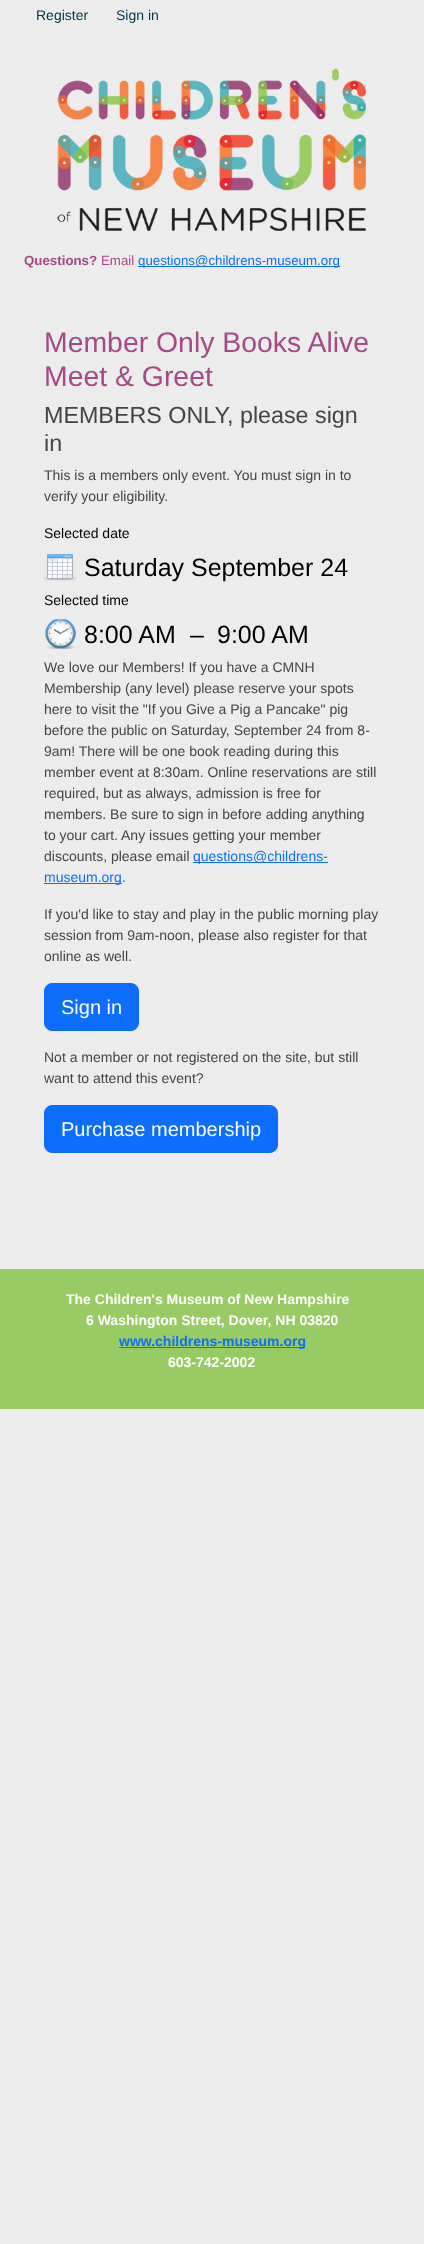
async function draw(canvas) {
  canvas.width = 424;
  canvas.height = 2244;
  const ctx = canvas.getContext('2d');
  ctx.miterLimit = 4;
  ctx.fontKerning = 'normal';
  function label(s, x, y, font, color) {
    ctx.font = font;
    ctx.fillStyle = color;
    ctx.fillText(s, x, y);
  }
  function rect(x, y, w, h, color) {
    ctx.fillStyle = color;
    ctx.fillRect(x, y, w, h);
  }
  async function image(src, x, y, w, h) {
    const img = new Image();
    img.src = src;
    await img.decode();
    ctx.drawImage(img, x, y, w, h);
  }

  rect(0, 0, 424, 2244, '#ececec');
  label('Register', 36, 20, '14px Liberation Sans', '#01384c');
  label('Sign in', 116, 20, '14px Liberation Sans', '#01384c');
  await image('assets/img1.png', 57, 68, 309, 163);
  label('Questions?', 24, 265, 'bold 13.3px Liberation Sans', '#a44a85');
  label('Email', 101, 265, '13.3px Liberation Sans', '#a44a85');
  rect(138, 266, 202, 1, '#0d6efd');
  label('questions@childrens-museum.org', 138, 265, '13.3px Liberation Sans', '#0d6efd');
  label('Member Only Books Alive', 44, 352, '28.4px Liberation Sans', '#a44a85');
  label('Meet & Greet', 44, 386, '28.4px Liberation Sans', '#a44a85');
  label('MEMBERS ONLY, please sign', 44, 423, '23.3px Liberation Sans', '#444');
  label('in', 44, 451, '23.3px Liberation Sans', '#444');
  label('This is a members only event. You must sign in to', 44, 480, '14px Liberation Sans', '#444');
  label('verify your eligibility.', 44, 501, '14px Liberation Sans', '#444');
  label('Selected date', 44, 538, '14px Liberation Sans', '#000');
  await image('assets/img2.png', 44, 554, 32, 27);
  label('Saturday September 24', 84, 576, '25px Liberation Sans', '#000');
  label('Selected time', 44, 605, '14px Liberation Sans', '#000');
  await image('assets/img3.png', 45, 619, 31, 30);
  label('8:00 AM', 84, 643, '25px Liberation Sans', '#000');
  label('–', 190, 643, '25px Liberation Sans', '#000');
  label('9:00 AM', 217, 643, '25px Liberation Sans', '#000');
  label('We love our Members! If you have a CMNH', 44, 672, '14px Liberation Sans', '#444');
  label('Membership (any level) please reserve your spots', 44, 693, '14px Liberation Sans', '#444');
  label('here to visit the "If you Give a Pig a Pancake" pig', 44, 714, '14px Liberation Sans', '#444');
  label('before the public on Saturday, September 24 from 8-', 44, 735, '14px Liberation Sans', '#444');
  label('9am! There will be one book reading during this', 44, 756, '14px Liberation Sans', '#444');
  label('member event at 8:30am. Online reservations are still', 44, 777, '14px Liberation Sans', '#444');
  label('required, but as always, admission is free for', 44, 798, '14px Liberation Sans', '#444');
  label('members. Be sure to sign in before adding anything', 44, 819, '14px Liberation Sans', '#444');
  label('to your cart. Any issues getting your member', 44, 840, '14px Liberation Sans', '#444');
  label('discounts, please email', 44, 861, '14px Liberation Sans', '#444');
  rect(193, 862, 135, 1, '#0d6efd');
  label('questions@childrens-', 193, 861, '14px Liberation Sans', '#0d6efd');
  rect(44, 883, 78, 1, '#0d6efd');
  label('museum.org', 44, 882, '14px Liberation Sans', '#0d6efd');
  label('.', 122, 882, '14px Liberation Sans', '#444');
  label('If you\'d like to stay and play in the public morning play', 44, 919, '14px Liberation Sans', '#444');
  label('session from 9am-noon, please also register for that', 44, 940, '14px Liberation Sans', '#444');
  label('online as well.', 44, 961, '14px Liberation Sans', '#444');
  ctx.fillStyle = '#0d6efd';
  ctx.beginPath();
  ctx.roundRect(44.5, 983.5, 94, 47, 7.5);
  ctx.fill();
  ctx.strokeStyle = '#0d6efd';
  ctx.stroke();
  label('Sign in', 61, 1014, '20px Liberation Sans', '#fff');
  label('Not a member or not registered on the site, but still', 44, 1062, '14px Liberation Sans', '#444');
  label('want to attend this event?', 44, 1083, '14px Liberation Sans', '#444');
  ctx.fillStyle = '#0d6efd';
  ctx.beginPath();
  ctx.roundRect(44.5, 1105.5, 233, 47, 7.5);
  ctx.fill();
  ctx.stroke();
  label('Purchase membership', 61, 1136, '20px Liberation Sans', '#fff');
  rect(0, 1269, 424, 140, '#98cb63');
  label('The Children\'s Museum of New Hampshire', 66, 1304, 'bold 14px Liberation Sans', '#fff');
  label('6 Washington Street, Dover, NH 03820', 86, 1325, 'bold 14px Liberation Sans', '#fff');
  rect(119, 1347, 186, 1, '#0d6efd');
  label('www.childrens-museum.org', 119, 1346, 'bold 14px Liberation Sans', '#0d6efd');
  label('603-742-2002', 168, 1367, 'bold 14px Liberation Sans', '#fff');
}

draw(document.querySelector('canvas'));
